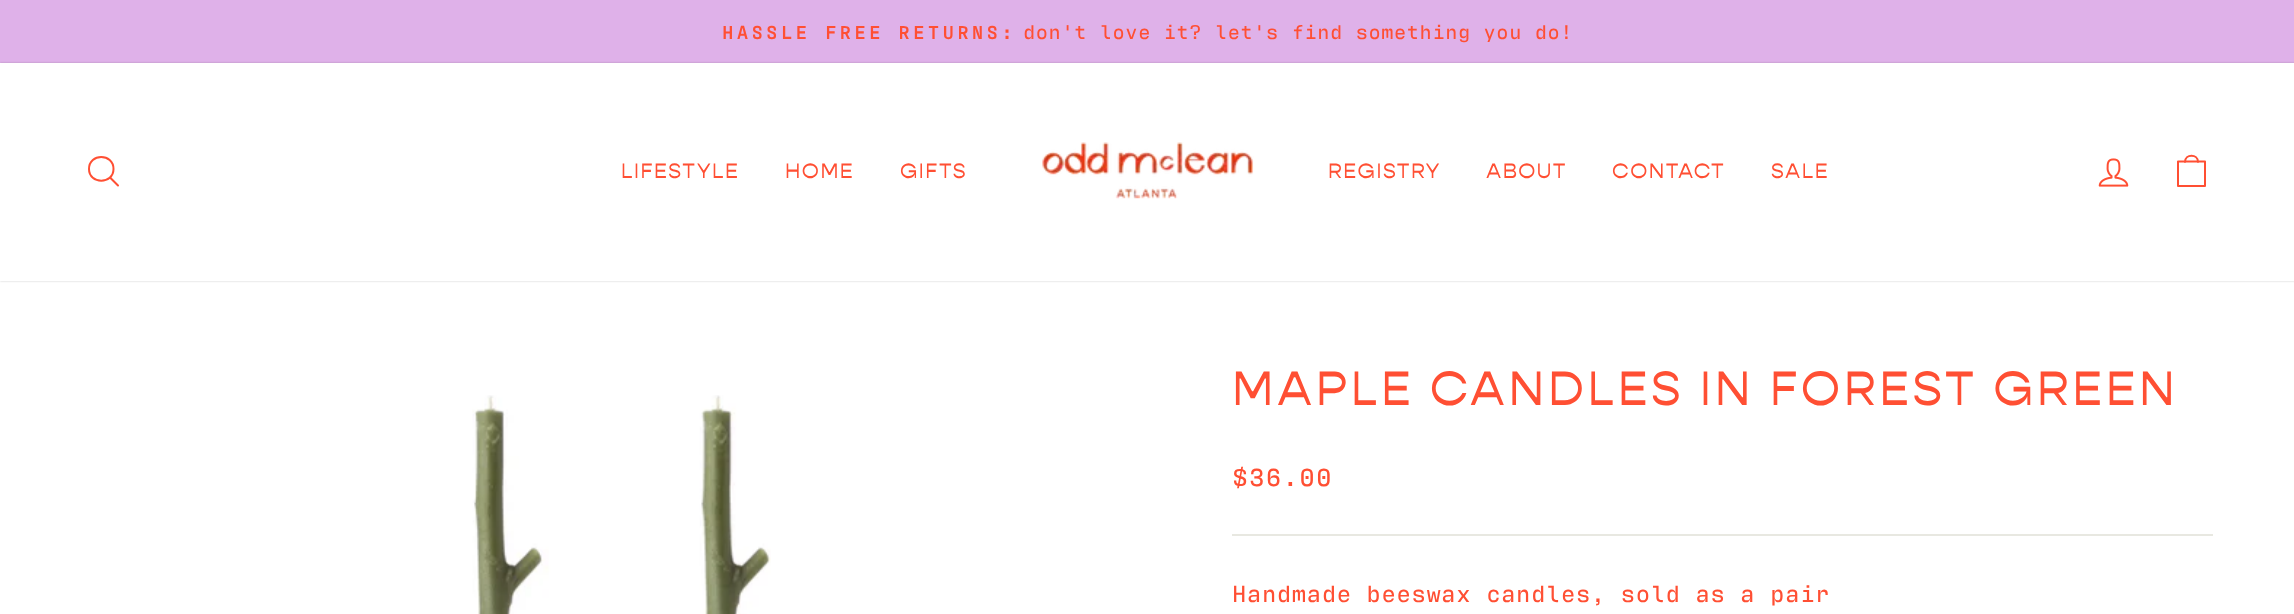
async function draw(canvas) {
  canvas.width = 2294;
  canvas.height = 614;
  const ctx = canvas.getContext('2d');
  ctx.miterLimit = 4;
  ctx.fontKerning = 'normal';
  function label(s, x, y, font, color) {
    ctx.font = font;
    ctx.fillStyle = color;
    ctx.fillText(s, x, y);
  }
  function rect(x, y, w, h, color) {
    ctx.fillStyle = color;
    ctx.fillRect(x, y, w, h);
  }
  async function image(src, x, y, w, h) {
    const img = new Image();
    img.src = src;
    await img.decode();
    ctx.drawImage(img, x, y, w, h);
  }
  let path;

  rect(0, 0, 2294, 614, '#fff');
  rect(0, 0, 2294, 63, '#dfb1e9');
  ctx.letterSpacing = '3.7px';
  label('HASSLE FREE RETURNS:', 722, 39, 'bold 18.4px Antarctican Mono', '#ff4f33');
  ctx.letterSpacing = '0.6px';
  label('don\'t love it? let\'s find something you do!', 1023, 39, '500 20.4px Antarctican Mono', '#ff4f33');
  ctx.fillStyle = '#00000033';
  ctx.filter = 'blur(1px)';
  ctx.beginPath();
  ctx.rect(0, 63, 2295, 218);
  ctx.fill();
  ctx.filter = 'none';
  rect(0, 63, 2294, 218, '#fff');
  path = new Path2D('M113.5 169C113.5 184.5 89 184.5 89 169C89 153 113.5 153 113.5 169ZM118 185.5L110 177.5');
  ctx.strokeStyle = '#ff4f33';
  ctx.lineWidth = 2;
  ctx.lineCap = 'round';
  ctx.lineJoin = 'round';
  ctx.stroke(path);
  ctx.letterSpacing = '1.5px';
  label('LIFESTYLE', 621, 178, '21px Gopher', '#ff4f33');
  label('HOME', 785, 178, '21px Gopher', '#ff4f33');
  label('GIFTS', 900, 178, '21px Gopher', '#ff4f33');
  await image('assets/img1.png', 1042, 142, 212, 57);
  label('REGISTRY', 1328, 178, '21px Gopher', '#ff4f33');
  label('ABOUT', 1486, 178, '21px Gopher', '#ff4f33');
  label('CONTACT', 1612, 178, '21px Gopher', '#ff4f33');
  label('SALE', 1771, 178, '21px Gopher', '#ff4f33');
  await image('assets/img2.png', 2098, 158, 31, 29);
  path = new Path2D('M2178 161.5H2205V186H2178ZM2185 162C2185 153.5 2198 153.5 2198 162');
  ctx.stroke(path);
  await image('assets/img3.png', 472, 395, 299, 219);
  ctx.letterSpacing = '3.6px';
  label('MAPLE CANDLES IN FOREST GREEN', 1232, 405, '48.5px Gopher', '#ff4f33');
  ctx.letterSpacing = '0.6px';
  label('$36.00', 1232, 486, '500 27px Antarctican Mono', '#ff4f33');
  rect(1232, 534, 981, 2, '#e8e8e1');
  label('Handmade beeswax candles, sold as a pair', 1232, 602, '500 24px Antarctican Mono', '#ff4f33');
}

draw(document.querySelector('canvas'));
